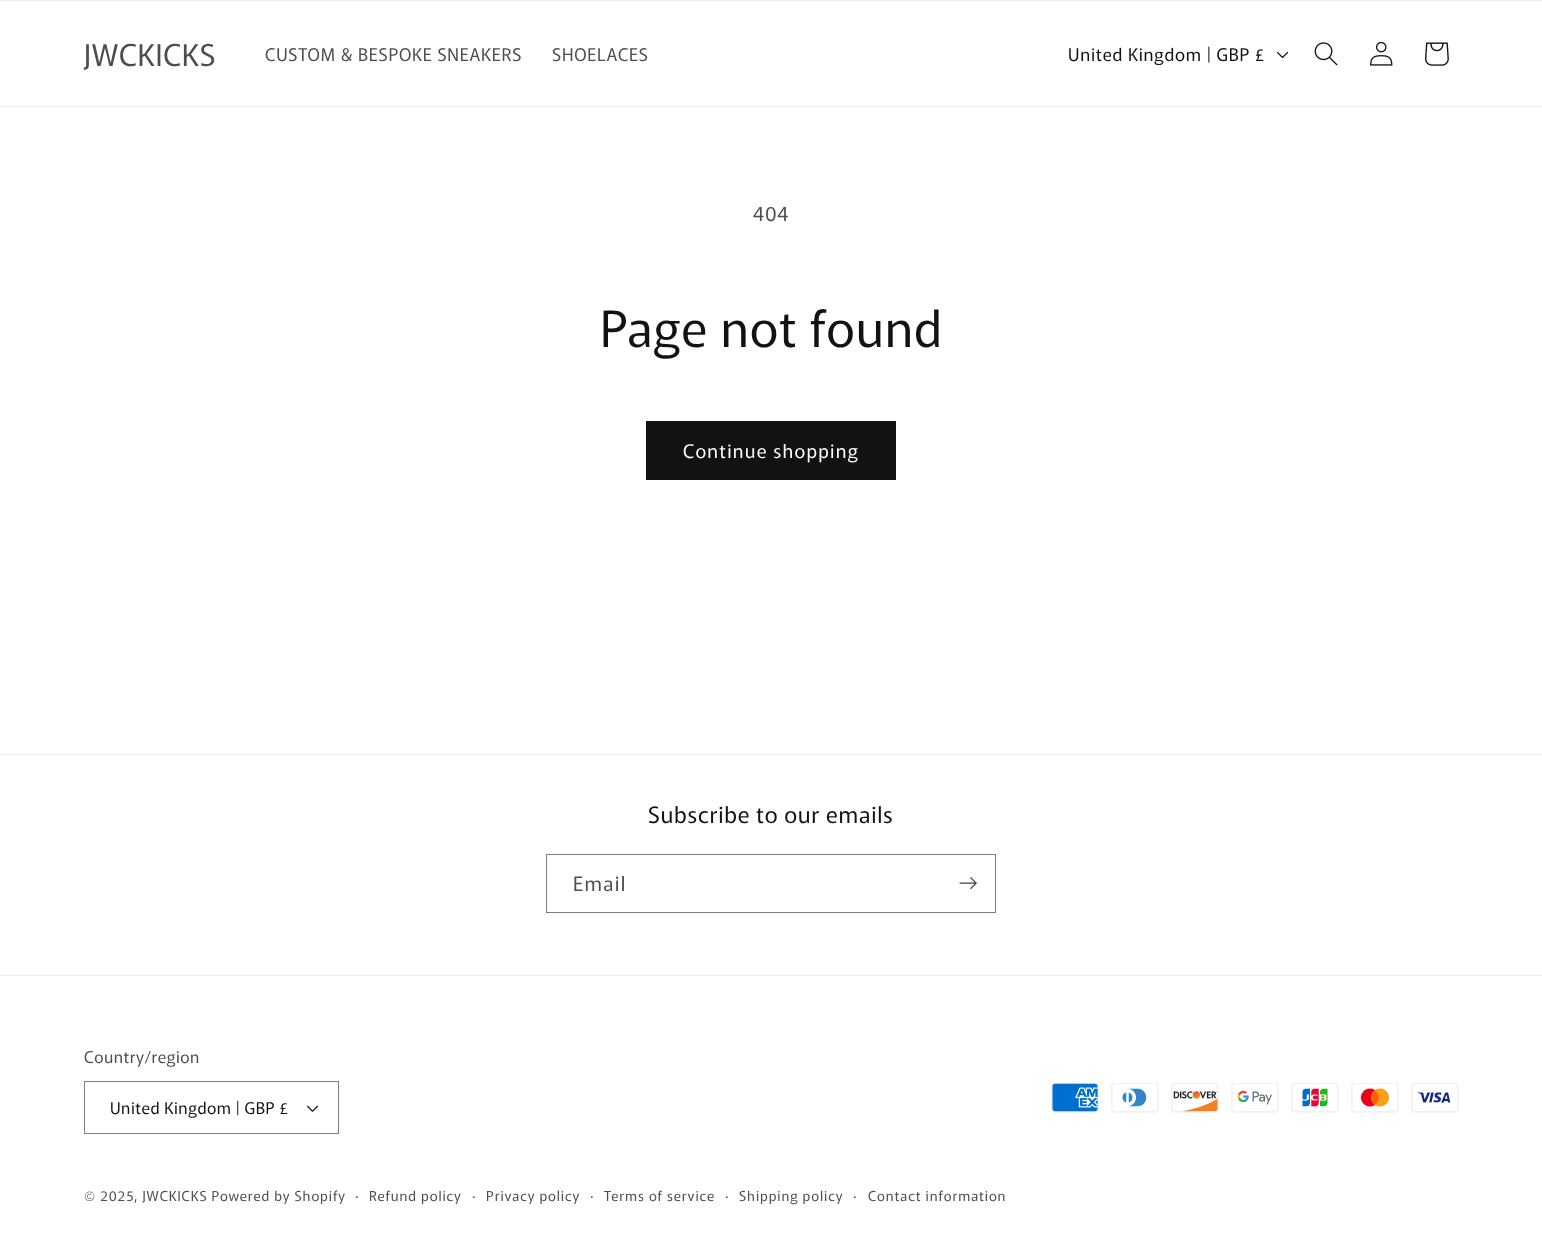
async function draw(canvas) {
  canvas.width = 1542;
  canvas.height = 1252;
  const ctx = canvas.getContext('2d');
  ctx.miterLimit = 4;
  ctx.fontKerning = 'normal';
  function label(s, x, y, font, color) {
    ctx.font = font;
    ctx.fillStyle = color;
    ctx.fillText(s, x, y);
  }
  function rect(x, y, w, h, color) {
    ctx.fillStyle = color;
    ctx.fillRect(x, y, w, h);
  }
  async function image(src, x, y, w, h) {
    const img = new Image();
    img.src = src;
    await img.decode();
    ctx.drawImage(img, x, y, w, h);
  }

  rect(0, 0, 1542, 1252, '#fff');
  rect(0, 0, 1542, 1, '#ececec');
  rect(0, 106, 1542, 1, '#ececec');
  ctx.letterSpacing = '0.75px';
  label('JWCKICKS', 84, 66, '30px Murecho', '#4d4d4d');
  label('CUSTOM & BESPOKE SNEAKERS', 265, 61, '17.5px Murecho', '#4d4d4d');
  label('SHOELACES', 552, 61, '17.5px Murecho', '#4d4d4d');
  label('United Kingdom | GBP £', 1068, 61, '17.5px Murecho', '#121212');
  await image('assets/img1.png', 1276, 51, 13, 8);
  await image('assets/img2.png', 1314, 42, 24, 24);
  await image('assets/img3.png', 1370, 41, 23, 25);
  await image('assets/img4.png', 1425, 42, 24, 24);
  label('404', 753, 221, '20px Murecho', '#4d4d4d');
  label('Page not found', 600, 347, '50px Murecho', '#121212');
  rect(646, 421, 250, 59, '#121212');
  ctx.letterSpacing = '1.25px';
  label('Continue shopping', 683, 458, '18.75px Murecho', '#fff');
  rect(0, 754, 1542, 1, '#ececec');
  ctx.letterSpacing = '0.75px';
  label('Subscribe to our emails', 648, 823, '22.5px Murecho', '#121212');
  ctx.strokeStyle = '#7d7d7d';
  ctx.strokeRect(546.5, 854.5, 449, 58);
  ctx.letterSpacing = '1.25px';
  label('Email', 573, 891, '20px Murecho', '#4d4d4d');
  await image('assets/img5.png', 959, 877, 18, 13);
  rect(0, 975, 1542, 1, '#ececec');
  ctx.letterSpacing = '0.5px';
  label('Country/region', 84, 1063, '16.25px Murecho', '#4d4d4d');
  await image('assets/img6.png', 306, 1105, 13, 7);
  ctx.strokeRect(84.5, 1081.5, 254, 52);
  label('United Kingdom | GBP £', 110, 1114, '16.25px Murecho', '#121212');
  await image('assets/img7.png', 1051, 1083, 48, 30);
  await image('assets/img8.png', 1111, 1083, 48, 30);
  await image('assets/img9.png', 1171, 1083, 48, 30);
  await image('assets/img10.png', 1231, 1083, 48, 30);
  await image('assets/img11.png', 1291, 1083, 48, 30);
  await image('assets/img12.png', 1351, 1083, 48, 30);
  await image('assets/img13.png', 1411, 1083, 48, 30);
  ctx.letterSpacing = '0.9px';
  label('© 2025, JWCKICKS Powered by Shopify', 84, 1201, '13.75px Murecho', '#4d4d4d');
  label('·', 355, 1201, '15px Murecho', '#4d4d4d');
  label('Refund policy', 369, 1201, '13.75px Murecho', '#4d4d4d');
  label('·', 472, 1201, '15px Murecho', '#4d4d4d');
  label('Privacy policy', 486, 1201, '13.75px Murecho', '#4d4d4d');
  label('·', 590, 1201, '15px Murecho', '#4d4d4d');
  label('Terms of service', 604, 1201, '13.75px Murecho', '#4d4d4d');
  label('·', 725, 1201, '15px Murecho', '#4d4d4d');
  label('Shipping policy', 739, 1201, '13.75px Murecho', '#4d4d4d');
  label('·', 853, 1201, '15px Murecho', '#4d4d4d');
  label('Contact information', 868, 1201, '13.75px Murecho', '#4d4d4d');
}

draw(document.querySelector('canvas'));
